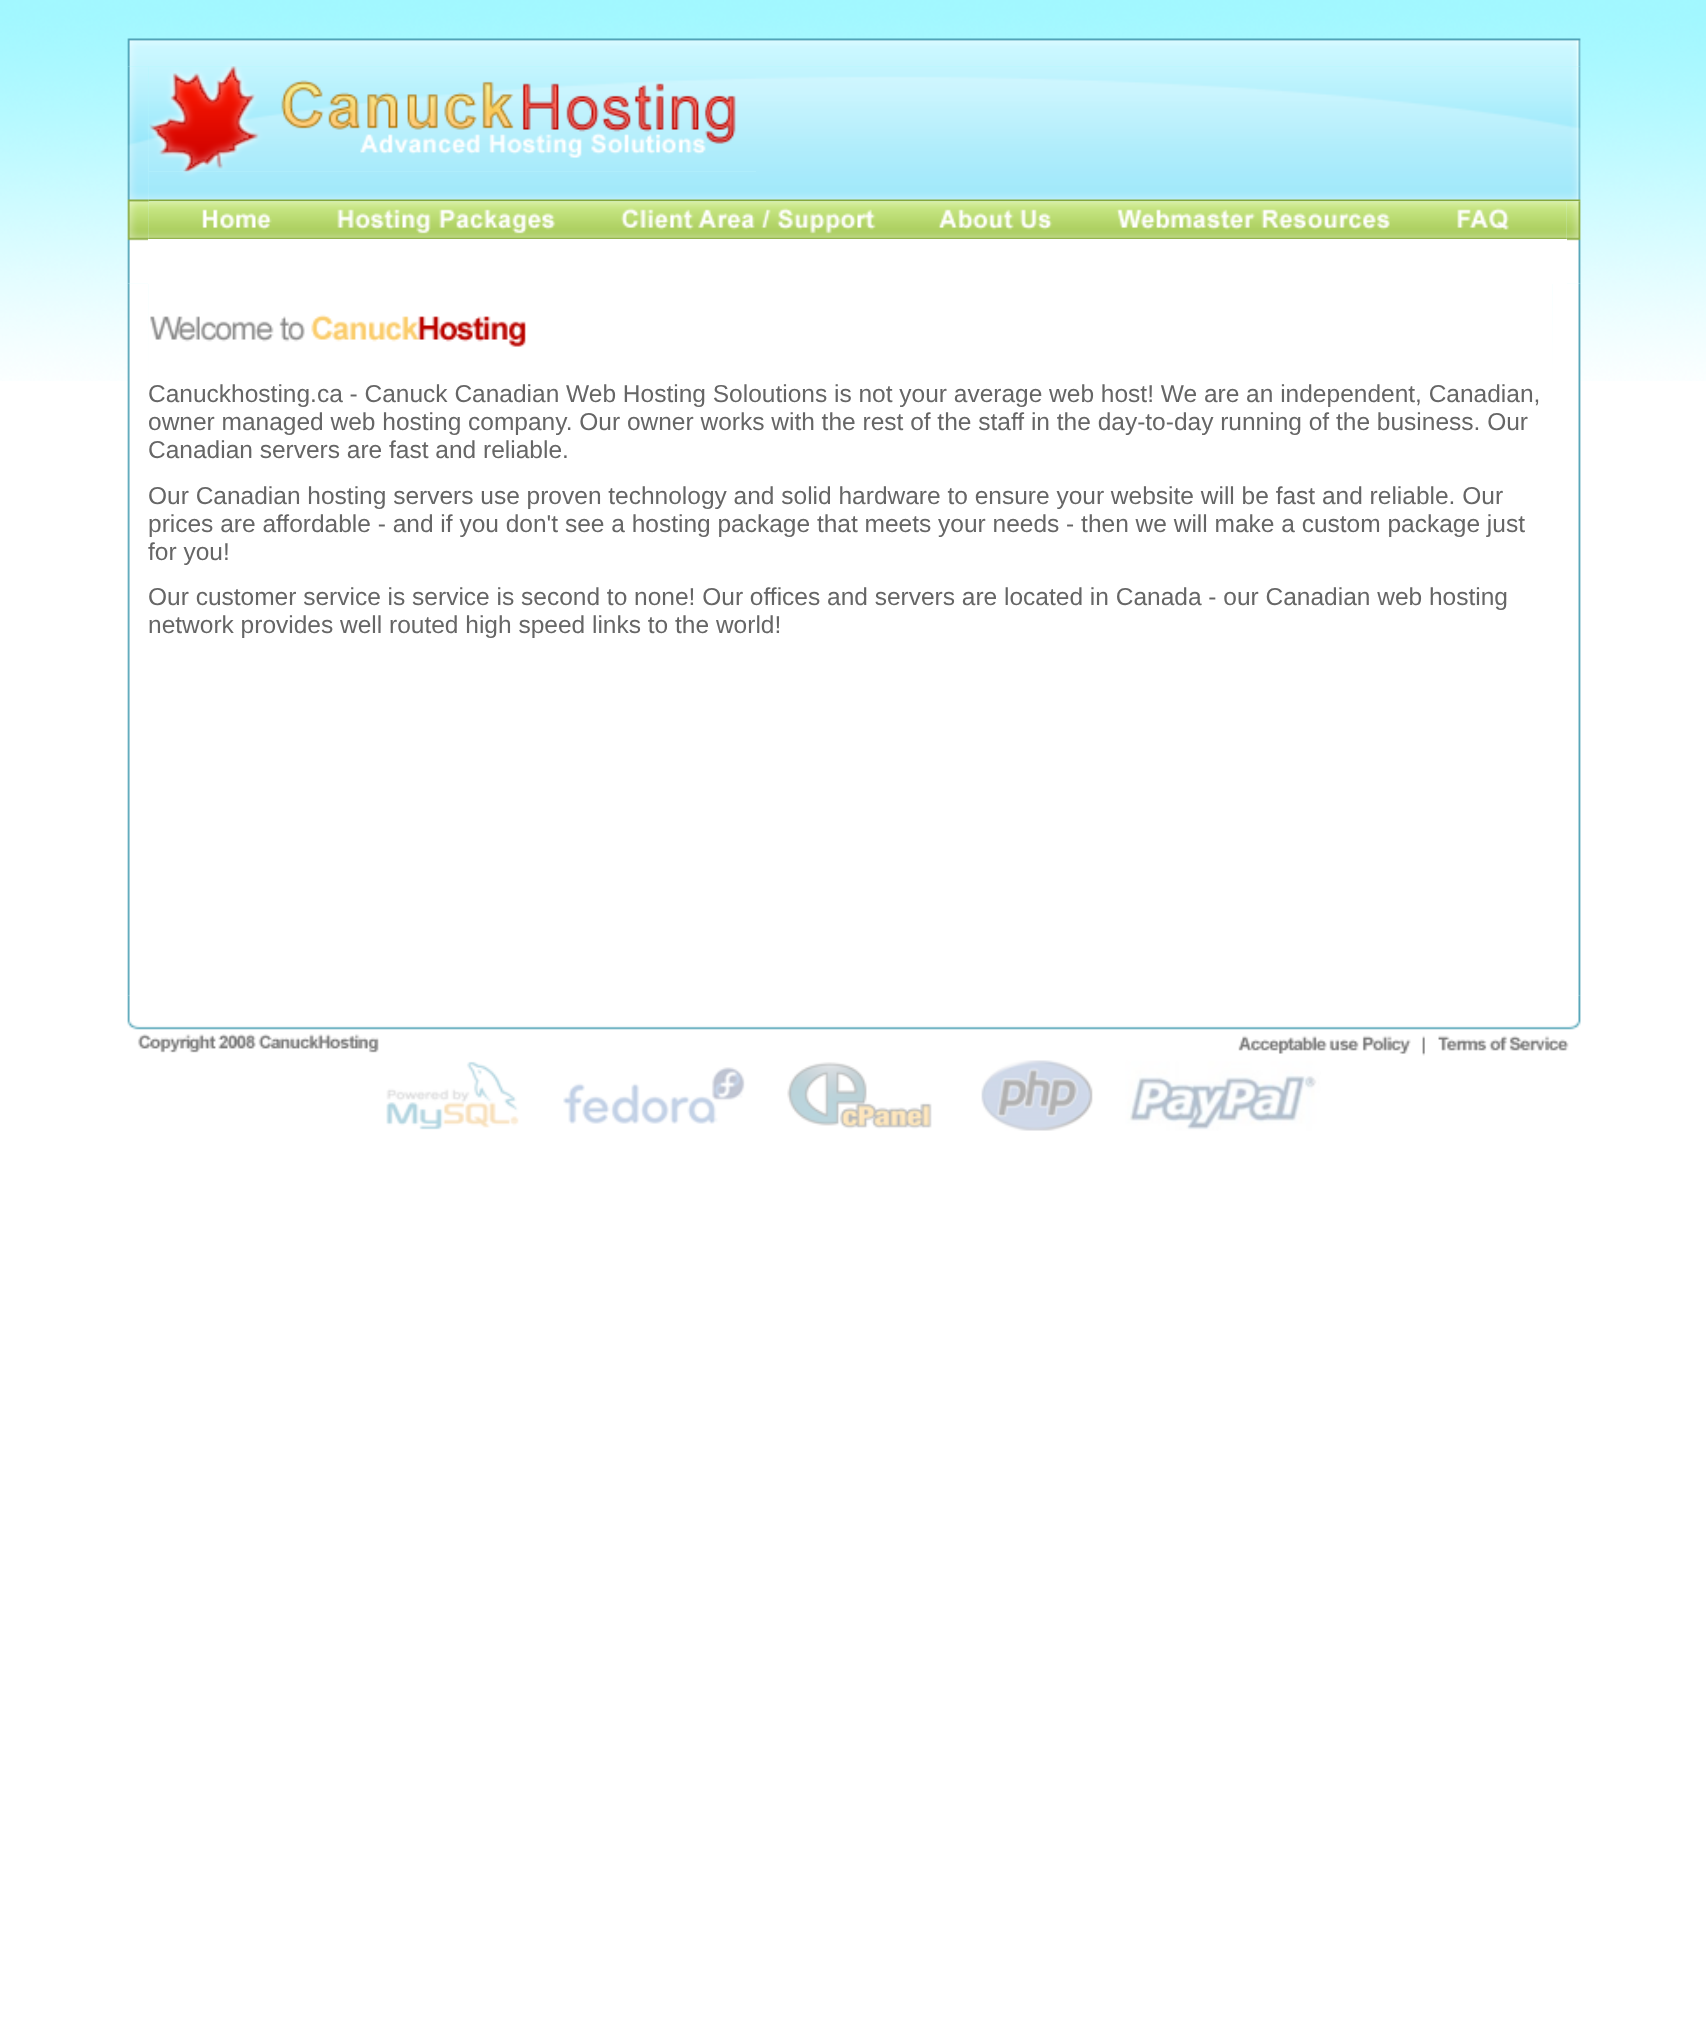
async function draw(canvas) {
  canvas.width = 1706;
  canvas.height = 2019;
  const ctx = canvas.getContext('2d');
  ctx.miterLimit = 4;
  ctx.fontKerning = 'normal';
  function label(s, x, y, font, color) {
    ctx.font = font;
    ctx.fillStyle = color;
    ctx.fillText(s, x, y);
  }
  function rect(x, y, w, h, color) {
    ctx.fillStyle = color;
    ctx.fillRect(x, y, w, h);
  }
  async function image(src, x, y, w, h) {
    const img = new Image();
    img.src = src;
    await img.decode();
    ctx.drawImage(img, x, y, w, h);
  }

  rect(0, 0, 1706, 2019, '#fff');
  await image('assets/img1.png', 0, 0, 1706, 381);
  await image('assets/img2.png', 127, 38, 1454, 29);
  await image('assets/img9.png', 127, 283, 22, 713);
  await image('assets/img3.png', 127, 66, 22, 218);
  await image('assets/img4.png', 149, 66, 607, 106);
  await image('assets/img5.png', 756, 66, 825, 136);
  await image('assets/img6.png', 148, 171, 608, 31);
  await image('assets/img7.png', 148, 201, 1419, 38);
  await image('assets/img11.png', 1552, 283, 29, 713);
  await image('assets/img8.png', 1566, 201, 15, 83);
  rect(148, 239, 1419, 45, '#fff');
  rect(149, 284, 1403, 97, '#fff');
  await image('assets/img10.png', 150, 314, 376, 33);
  label('Canuckhosting.ca - Canuck Canadian Web Hosting Soloutions is not your average web host! We are an independent, Canadian,', 148, 402, '24.5px Liberation Sans', '#666');
  label('owner managed web hosting company. Our owner works with the rest of the staff in the day-to-day running of the business. Our', 148, 430, '24.5px Liberation Sans', '#666');
  label('Canadian servers are fast and reliable.', 148, 458, '24.5px Liberation Sans', '#666');
  label('Our Canadian hosting servers use proven technology and solid hardware to ensure your website will be fast and reliable. Our', 148, 504, '24.5px Liberation Sans', '#666');
  label('prices are affordable - and if you don\'t see a hosting package that meets your needs - then we will make a custom package just', 148, 532, '24.5px Liberation Sans', '#666');
  label('for you!', 148, 560, '24.5px Liberation Sans', '#666');
  label('Our customer service is service is second to none! Our offices and servers are located in Canada - our Canadian web hosting', 148, 605, '24.5px Liberation Sans', '#666');
  label('network provides well routed high speed links to the world!', 148, 633, '24.5px Liberation Sans', '#666');
  await image('assets/img12.png', 127, 995, 1454, 136);
}

draw(document.querySelector('canvas'));
